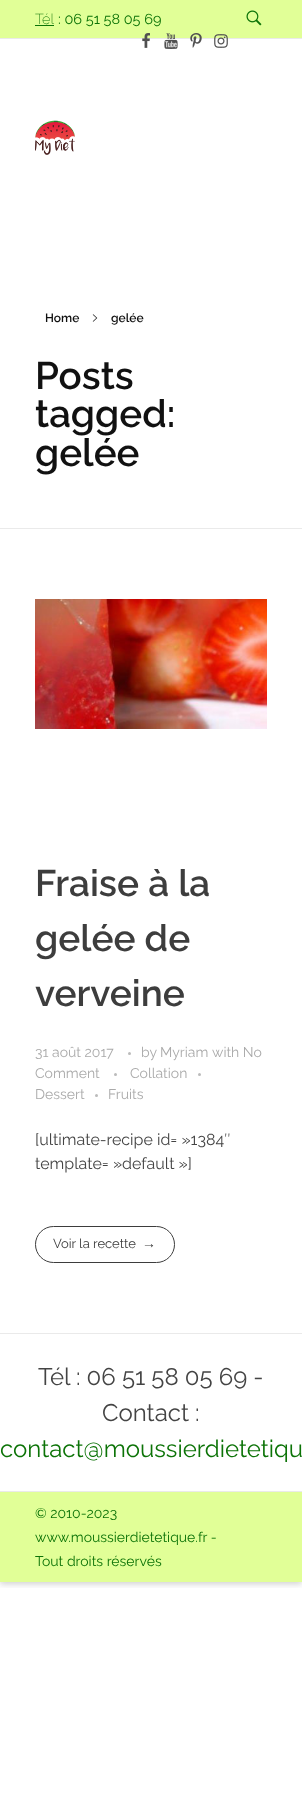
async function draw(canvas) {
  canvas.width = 302;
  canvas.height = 1802;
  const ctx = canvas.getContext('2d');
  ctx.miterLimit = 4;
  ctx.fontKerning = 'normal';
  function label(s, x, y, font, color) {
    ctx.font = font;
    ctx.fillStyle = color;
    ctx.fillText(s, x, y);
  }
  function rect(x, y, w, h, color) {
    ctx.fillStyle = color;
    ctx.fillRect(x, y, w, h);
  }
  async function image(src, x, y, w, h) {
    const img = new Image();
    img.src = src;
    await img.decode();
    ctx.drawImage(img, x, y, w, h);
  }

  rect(0, 0, 302, 1802, '#fff');
  ctx.save();
  ctx.beginPath();
  ctx.rect(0, 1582, 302, 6);
  ctx.clip();
  ctx.fillStyle = '#6464644d';
  ctx.filter = 'blur(3px)';
  ctx.beginPath();
  ctx.rect(0, 2, 302, 1582);
  ctx.fill();
  ctx.filter = 'none';
  ctx.restore();
  rect(0, 0, 302, 38, '#e1ff97');
  rect(0, 38, 302, 1, '#eaeaea');
  label('Tél', 35, 24, '200 14.5px Raleway', '#0c7307');
  rect(35, 25, 19, 1, '#0c7307');
  label(': 06 51 58 05 69', 58, 24, '14.5px Raleway', '#0c7307');
  await image('assets/img1.png', 246, 10, 16, 16);
  await image('assets/img2.png', 142, 33, 8, 15);
  await image('assets/img3.png', 164, 33, 14, 16);
  await image('assets/img4.png', 190, 33, 12, 15);
  await image('assets/img5.png', 214, 34, 14, 14);
  await image('assets/img6.png', 35, 120, 40, 35);
  rect(0, 528, 302, 1, '#eaeaea');
  label('Home', 45, 322, '600 12px Raleway', '#111');
  await image('assets/img7.png', 92, 314, 6, 8);
  label('gelée', 111, 322, '600 12px Raleway', '#111');
  label('Posts', 35, 389, '600 38.5px Raleway', '#111');
  label('tagged:', 35, 427, '600 38.5px Raleway', '#111');
  label('gelée', 35, 466, '600 38.5px Raleway', '#111');
  await image('assets/img8.png', 35, 599, 232, 130);
  label('Fraise à la', 35, 896, '600 37px Raleway', '#3d3d3d');
  label('gelée de', 35, 951, '600 37px Raleway', '#3d3d3d');
  label('verveine', 35, 1006, '600 37px Raleway', '#3d3d3d');
  label('31 août 2017', 35, 1057, '14px Raleway', '#aaa');
  ctx.fillStyle = '#bbb';
  ctx.beginPath();
  ctx.arc(129.5, 1053.5, 1.5, 0, 2 * Math.PI);
  ctx.fill();
  label('by', 141, 1057, '14px Raleway', '#aaa');
  label('Myriam', 160, 1057, '14px Raleway', '#aaa');
  label('with No', 212, 1057, '14px Raleway', '#aaa');
  label('Comment', 35, 1078, '14px Raleway', '#aaa');
  ctx.fillStyle = '#bbb';
  ctx.beginPath();
  ctx.arc(115.5, 1074.5, 1.5, 0, 2 * Math.PI);
  ctx.fill();
  label('Collation', 130, 1078, '14px Raleway', '#aaa');
  ctx.fillStyle = '#bbb';
  ctx.beginPath();
  ctx.arc(199.5, 1074.5, 1.5, 0, 2 * Math.PI);
  ctx.fill();
  label('Dessert', 35, 1099, '14px Raleway', '#aaa');
  ctx.fillStyle = '#bbb';
  ctx.beginPath();
  ctx.arc(96.5, 1095.5, 1.5, 0, 2 * Math.PI);
  ctx.fill();
  label('Fruits', 108, 1099, '14px Raleway', '#aaa');
  label('[ultimate-recipe id= »1384″', 35, 1145, '16px Raleway', '#444');
  label('template= »default »]', 35, 1169, '16px Raleway', '#444');
  ctx.beginPath();
  ctx.roundRect(35.5, 1226.5, 139, 36, 18);
  ctx.strokeStyle = '#3d3d3d';
  ctx.stroke();
  label('Voir la recette', 53, 1248, '13px Raleway', '#3d3d3d');
  label('→', 142, 1248, '14px Liberation Sans', '#3d3d3d');
  rect(0, 1333, 302, 1, '#eaeaea');
  label('Tél : 06 51 58 05 69 -', 38, 1385, '24px Raleway', '#444');
  label('Contact :', 102, 1421, '24px Raleway', '#444');
  label('contact@moussierdietetiqu', 0, 1457, '24px Raleway', '#0c7307');
  rect(0, 1492, 302, 90, '#e1ff97');
  rect(0, 1491, 302, 1, '#eaeaea');
  label('© 2010-2023', 35, 1518, '14px Raleway', '#0c7307');
  label('www.moussierdietetique.fr -', 35, 1542, '14px Raleway', '#0c7307');
  label('Tout droits réservés', 35, 1566, '14px Raleway', '#0c7307');
}

draw(document.querySelector('canvas'));
